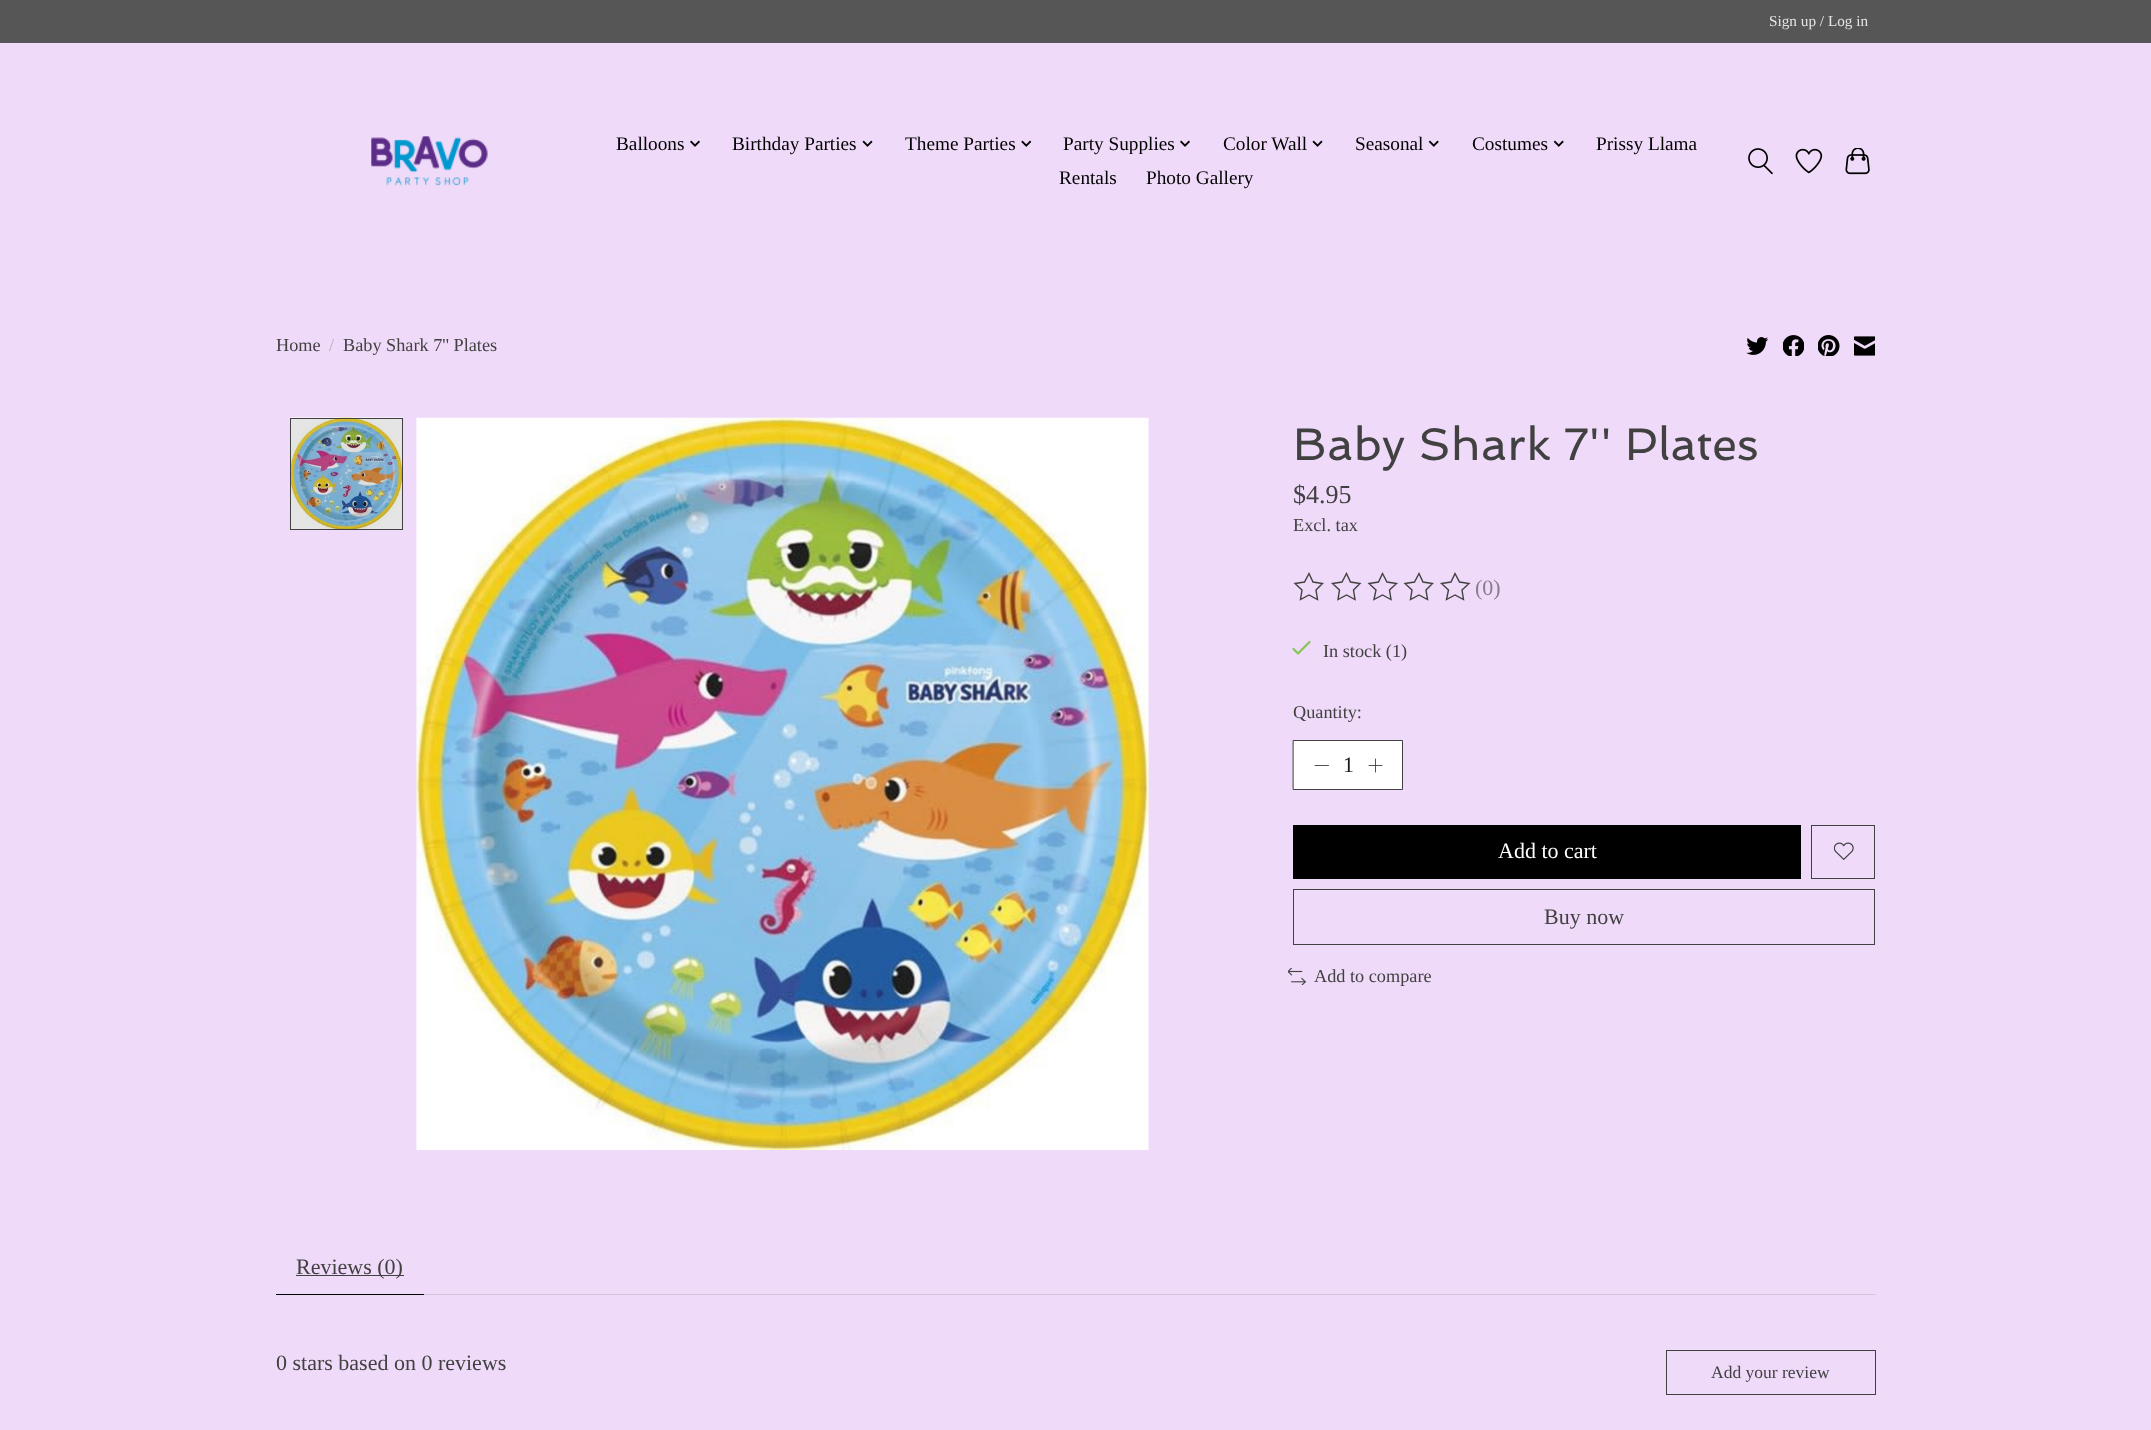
async function draw(canvas) {
  canvas.width = 2151;
  canvas.height = 1430;
  const ctx = canvas.getContext('2d');
  ctx.miterLimit = 4;
  ctx.fontKerning = 'normal';
  function label(s, x, y, font, color) {
    ctx.font = font;
    ctx.fillStyle = color;
    ctx.fillText(s, x, y);
  }
  function rect(x, y, w, h, color) {
    ctx.fillStyle = color;
    ctx.fillRect(x, y, w, h);
  }
  async function image(src, x, y, w, h) {
    const img = new Image();
    img.src = src;
    await img.decode();
    ctx.drawImage(img, x, y, w, h);
  }
  let path;

  rect(0, 0, 2151, 1430, '#f0daf9');
  rect(0, 0, 2151, 43, '#565656');
  label('Sign up / Log in', 1769, 26, '15.25px Liberation Serif', '#e4e4e4');
  await image('assets/img1.png', 371, 136, 117, 50);
  label('Balloons', 616, 150, '19.25px Liberation Serif', '#000');
  await image('assets/img2.png', 690, 140, 10, 7);
  label('Birthday Parties', 732, 150, '19.25px Liberation Serif', '#000');
  await image('assets/img3.png', 862, 140, 11, 7);
  label('Theme Parties', 905, 150, '19.25px Liberation Serif', '#000');
  await image('assets/img4.png', 1021, 140, 11, 7);
  label('Party Supplies', 1063, 150, '19.25px Liberation Serif', '#000');
  await image('assets/img2.png', 1180, 140, 10, 7);
  label('Color Wall', 1223, 150, '19.25px Liberation Serif', '#000');
  await image('assets/img3.png', 1312, 140, 11, 7);
  label('Seasonal', 1355, 150, '19.25px Liberation Serif', '#000');
  await image('assets/img5.png', 1428, 140, 11, 7);
  label('Costumes', 1472, 150, '19.25px Liberation Serif', '#000');
  await image('assets/img5.png', 1553, 140, 11, 7);
  label('Prissy Llama', 1596, 150, '19.25px Liberation Serif', '#000');
  label('Rentals', 1059, 184, '19.25px Liberation Serif', '#000');
  label('Photo Gallery', 1146, 184, '19.25px Liberation Serif', '#000');
  await image('assets/img6.png', 1748, 148, 25, 27);
  await image('assets/img7.png', 1795, 148, 28, 26);
  await image('assets/img8.png', 1845, 148, 25, 27);
  label('Home', 276, 351, '18.25px Liberation Serif', '#414141');
  label('/', 329, 351, '18.25px Liberation Serif', '#bcacc2');
  label('Baby Shark 7\'\' Plates', 343, 351, '18.25px Liberation Serif', '#414141');
  await image('assets/img9.png', 1746, 337, 23, 18);
  await image('assets/img10.png', 1783, 335, 21, 21);
  await image('assets/img11.png', 1818, 335, 22, 21);
  await image('assets/img12.png', 1854, 336, 21, 20);
  await image('assets/img13.png', 290, 417, 113, 112);
  ctx.strokeStyle = '#414141';
  ctx.strokeRect(290.5, 418.5, 112, 111);
  await image('assets/img14.png', 416, 417, 733, 733);
  label('Baby Shark 7\'\' Plates', 1293, 460, '45.6px Spinnaker', '#414141');
  label('$4.95', 1293, 503, '26px Liberation Serif', '#414141');
  label('Excl. tax', 1293, 531, '18.25px Liberation Serif', '#414141');
  path = new Path2D('M1309 573.5L1313 582L1322.5 583.5L1316 590L1317.5 599.5L1309 595L1300.5 599.5L1302 590L1295 583.5L1304.5 582Z');
  ctx.lineWidth = 1.4;
  ctx.stroke(path);
  path = new Path2D('M1346.5 573.5L1350.5 582L1360 583.5L1353.5 590L1355 599.5L1346.5 595L1338 599.5L1339.5 590L1332.5 583.5L1342 582Z');
  ctx.stroke(path);
  path = new Path2D('M1382.5 573.5L1387 582L1396.5 583.5L1389.5 590L1391 599.5L1382.5 595L1374 599.5L1376 590L1369 583.5L1378.5 582Z');
  ctx.stroke(path);
  path = new Path2D('M1419 573.5L1423 582L1432.5 583.5L1426 590L1427.5 599.5L1419 595L1410.5 599.5L1412 590L1405 583.5L1414.5 582Z');
  ctx.stroke(path);
  path = new Path2D('M1455 573.5L1459.5 582L1469 583.5L1462 590L1463.5 599.5L1455 595L1446.5 599.5L1448.5 590L1441.5 583.5L1451 582Z');
  ctx.stroke(path);
  label('(0)', 1475, 595, '22px Liberation Serif', '#877e8b');
  path = new Path2D('M1293.5 649L1298 653.5L1309.5 642');
  ctx.strokeStyle = '#88c559';
  ctx.lineWidth = 2.3;
  ctx.lineCap = 'round';
  ctx.lineJoin = 'round';
  ctx.stroke(path);
  label('In stock (1)', 1323, 657, '18.25px Liberation Serif', '#414141');
  label('Quantity:', 1293, 718, '18.25px Liberation Serif', '#414141');
  ctx.fillStyle = '#fff';
  ctx.beginPath();
  ctx.rect(1293.5, 740.5, 109, 49);
  ctx.fill();
  ctx.strokeStyle = '#414141';
  ctx.lineWidth = 1;
  ctx.lineJoin = 'miter';
  ctx.stroke();
  path = new Path2D('M1315 765.5H1328.5');
  ctx.lineWidth = 0.9;
  ctx.lineJoin = 'round';
  ctx.stroke(path);
  label('1', 1343, 772, '22px Liberation Serif', '#1c1c21');
  path = new Path2D('M1375.5 759V772M1369 765.5H1382');
  ctx.stroke(path);
  rect(1293, 825, 508, 54, '#000');
  label('Add to cart', 1498, 858, '22px Liberation Serif', '#fff');
  ctx.lineWidth = 1;
  ctx.lineJoin = 'miter';
  ctx.strokeRect(1811.5, 825.5, 63, 53);
  await image('assets/img15.png', 1834, 842, 20, 18);
  ctx.strokeRect(1293.5, 889.5, 581, 55);
  label('Buy now', 1544, 924, '22px Liberation Serif', '#414141');
  await image('assets/img16.png', 1288, 968, 18, 17);
  label('Add to compare', 1314, 982, '18.25px Liberation Serif', '#414141');
  rect(276, 1294, 148, 1, '#000');
  rect(296, 1275, 108, 1, '#414141');
  label('Reviews (0)', 296, 1274, '22px Liberation Serif', '#414141');
  rect(424, 1294, 1452, 1, '#d6c3dd');
  label('0 stars based on 0 reviews', 276, 1370, '22px Liberation Serif', '#414141');
  ctx.strokeRect(1666.5, 1350.5, 209, 44);
  label('Add your review', 1711, 1378, '17.5px Liberation Serif', '#414141');
}

draw(document.querySelector('canvas'));
